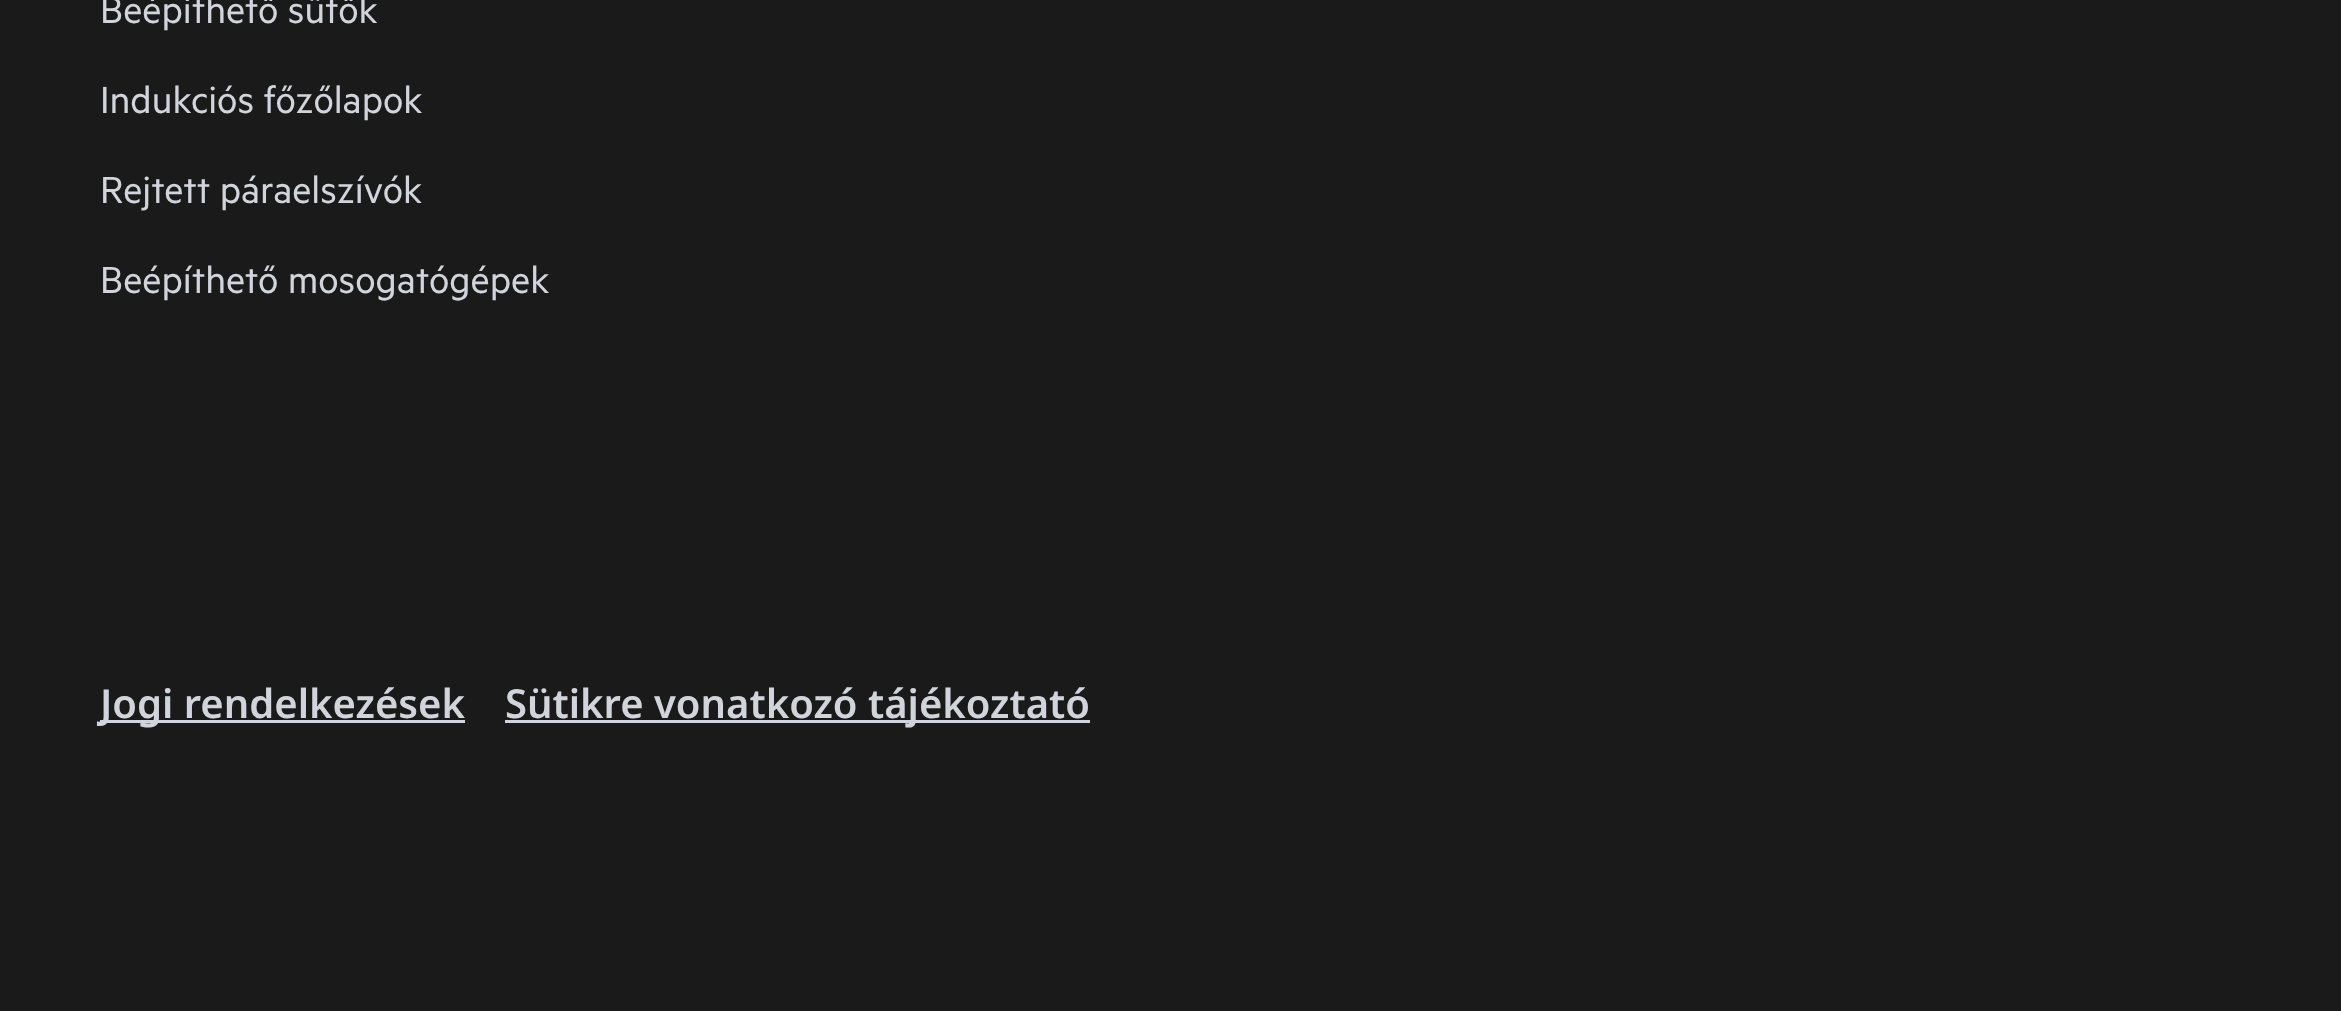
async function draw(canvas) {
  canvas.width = 2341;
  canvas.height = 1011;
  const ctx = canvas.getContext('2d');
  ctx.miterLimit = 4;
  ctx.fontKerning = 'normal';
  function label(s, x, y, font, color) {
    ctx.font = font;
    ctx.fillStyle = color;
    ctx.fillText(s, x, y);
  }
  function rect(x, y, w, h, color) {
    ctx.fillStyle = color;
    ctx.fillRect(x, y, w, h);
  }

  rect(0, 0, 2341, 1011, '#1a1a1a');
  label('Beépíthető sütők', 100, 23, '42.5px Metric', '#d1d5db');
  label('Indukciós főzőlapok', 100, 113, '42.5px Metric', '#d1d5db');
  label('Rejtett páraelszívók', 100, 203, '42.5px Metric', '#d1d5db');
  label('Beépíthető mosogatógépek', 100, 293, '42.5px Metric', '#d1d5db');
  rect(100, 720, 365, 3, '#d1d5db');
  label('Jogi rendelkezések', 100, 718, '600 40px Noto Sans', '#d1d5db');
  rect(505, 720, 585, 3, '#d1d5db');
  label('Sütikre vonatkozó tájékoztató', 505, 718, '600 40px Noto Sans', '#d1d5db');
}

draw(document.querySelector('canvas'));
